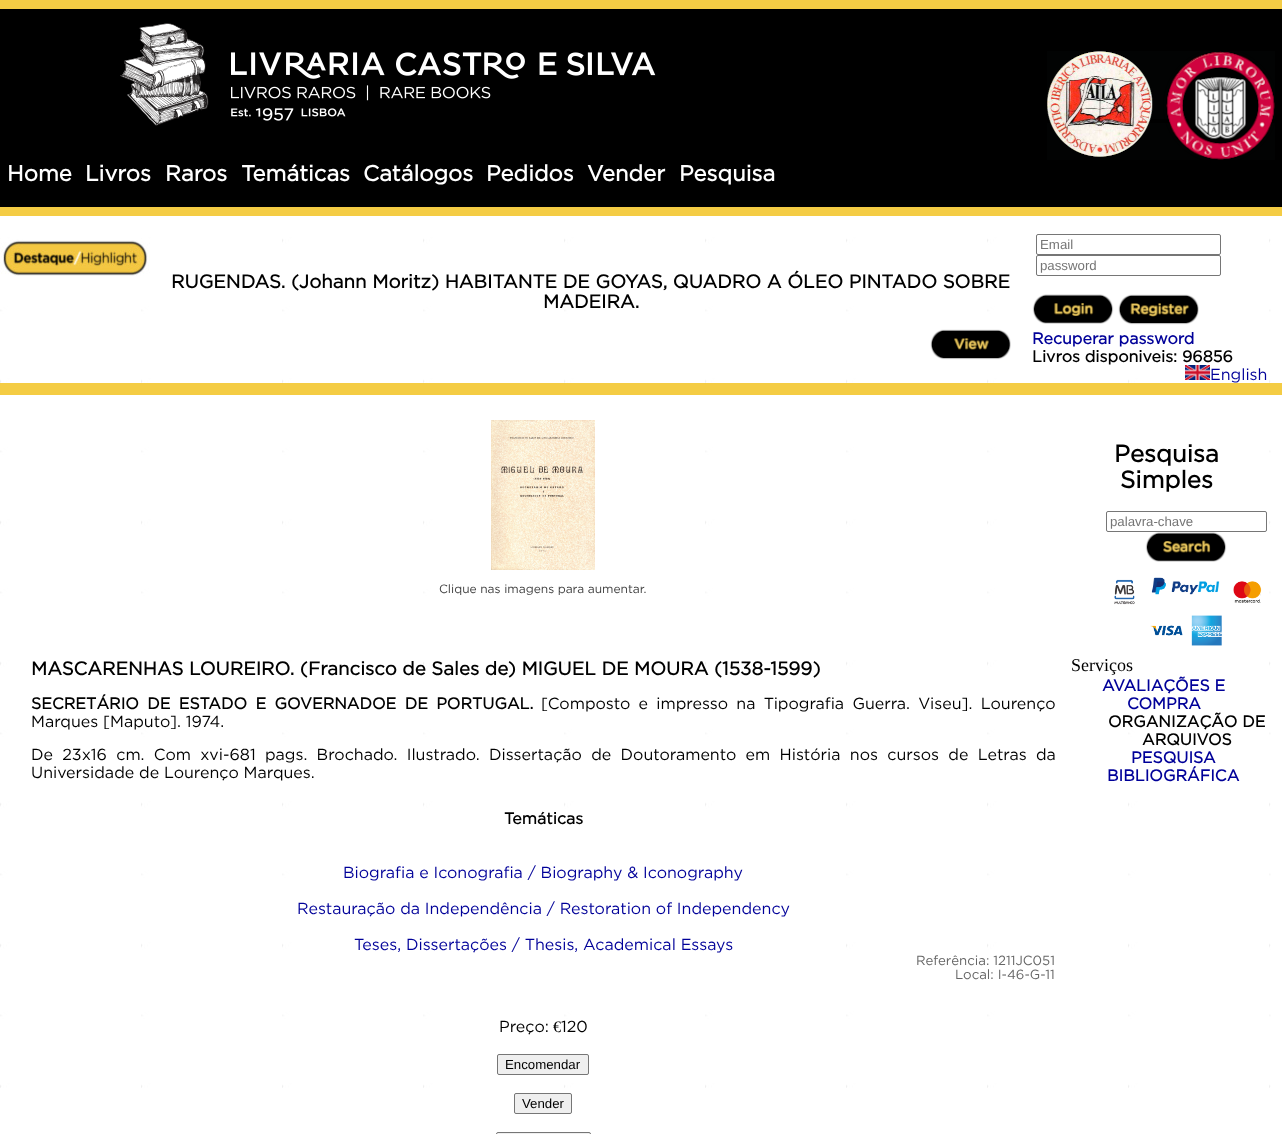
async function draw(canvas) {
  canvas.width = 1282;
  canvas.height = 1134;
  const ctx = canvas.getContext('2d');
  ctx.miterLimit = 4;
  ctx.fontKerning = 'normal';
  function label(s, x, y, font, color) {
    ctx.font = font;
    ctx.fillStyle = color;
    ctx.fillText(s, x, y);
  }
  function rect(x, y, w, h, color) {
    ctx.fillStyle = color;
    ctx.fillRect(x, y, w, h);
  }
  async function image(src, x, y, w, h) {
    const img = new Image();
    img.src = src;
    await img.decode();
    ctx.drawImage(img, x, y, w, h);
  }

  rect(0, 0, 1282, 1134, '#fff');
  await image('assets/img1.png', 0, 216, 1271, 872);
  rect(0, 0, 1282, 9, '#f4cc44');
  rect(0, 9, 1282, 198, '#000');
  await image('assets/img2.png', 120, 23, 89, 103);
  await image('assets/img3.png', 231, 52, 425, 69);
  await image('assets/img4.png', 1047, 51, 228, 109);
  label('Home', 7, 181, 'bold 22px Gotham', '#fff');
  label('Livros', 85, 181, 'bold 22px Gotham', '#fff');
  label('Raros', 165, 181, 'bold 22px Gotham', '#fff');
  label('Temáticas', 241, 181, 'bold 22px Gotham', '#fff');
  label('Catálogos', 363, 181, 'bold 22px Gotham', '#fff');
  label('Pedidos', 486, 181, 'bold 22px Gotham', '#fff');
  label('Vender', 587, 181, 'bold 22px Gotham', '#fff');
  label('Pesquisa', 679, 181, 'bold 22px Gotham', '#fff');
  rect(0, 207, 1282, 9, '#f4cc44');
  await image('assets/img5.png', 0, 239, 150, 37);
  label('RUGENDAS. (Johann Moritz) HABITANTE DE GOYAS, QUADRO A ÓLEO PINTADO SOBRE', 171, 288, 'bold 18.7px Gotham', '#000');
  label('MADEIRA.', 543, 308, 'bold 18.7px Gotham', '#000');
  await image('assets/img6.png', 930, 329, 81, 31);
  ctx.fillStyle = '#fff';
  ctx.beginPath();
  ctx.roundRect(1036.5, 234.5, 184, 20, 1.5);
  ctx.fill();
  ctx.strokeStyle = '#767676';
  ctx.stroke();
  label('Email', 1040, 249, '13.25px Liberation Sans', '#757575');
  ctx.beginPath();
  ctx.roundRect(1036.5, 255.5, 184, 20, 1.5);
  ctx.stroke();
  label('password', 1040, 270, '13.25px Liberation Sans', '#757575');
  await image('assets/img7.png', 1032, 294, 82, 30);
  await image('assets/img8.png', 1118, 294, 81, 31);
  label('Recuperar password', 1032, 344, 'bold 16px Gotham', '#009');
  label('Livros disponiveis: 96856', 1032, 362, 'bold 16px Gotham', '#000');
  await image('assets/img9.png', 1185, 365, 25, 15);
  label('English', 1210, 380, '16px Gotham', '#009');
  rect(0, 383, 1282, 12, '#f4cc44');
  await image('assets/img10.png', 491, 420, 104, 150);
  label('Clique nas imagens para aumentar.', 439, 593, '12px Gotham', '#404040');
  label('MASCARENHAS LOUREIRO. (Francisco de Sales de) MIGUEL DE MOURA (1538-1599)', 31, 675, 'bold 18.65px Gotham', '#000');
  ctx.wordSpacing = '3.5px';
  label('SECRETÁRIO DE ESTADO E GOVERNADOE DE PORTUGAL.', 31, 709, 'bold 16px Gotham', '#000');
  label('[Composto e impresso na Tipografia Guerra. Viseu]. Lourenço', 541, 709, '16px Gotham', '#000');
  ctx.wordSpacing = '0px';
  label('Marques [Maputo]. 1974.', 31, 727, '16px Gotham', '#000');
  ctx.wordSpacing = '4.5px';
  label('De 23x16 cm. Com xvi-681 pags. Brochado. Ilustrado. Dissertação de Doutoramento em História nos cursos de Letras da', 31, 760, '16px Gotham', '#000');
  ctx.wordSpacing = '0px';
  label('Universidade de Lourenço Marques.', 31, 778, '16px Gotham', '#000');
  label('Temáticas', 504, 824, 'bold 16px Gotham', '#000');
  label('Biografia e Iconografia / Biography & Iconography', 343, 878, '16px Gotham', '#009');
  label('Restauração da Independência / Restoration of Independency', 297, 914, '16px Gotham', '#009');
  label('Teses, Dissertações / Thesis, Academical Essays', 354, 950, '16px Gotham', '#009');
  label('Referência: 1211JC051', 916, 965, '13.25px Gotham', '#666');
  label('Local: I-46-G-11', 955, 979, '13.25px Gotham', '#666');
  label('Preço:', 499, 1032, '16px Gotham', '#000');
  label('€', 553, 1032, '16px Liberation Serif', '#000');
  label('120', 561, 1032, '16px Gotham', '#000');
  ctx.fillStyle = '#efefef';
  ctx.beginPath();
  ctx.roundRect(497.5, 1054.5, 91, 20, 1.5);
  ctx.fill();
  ctx.stroke();
  label('Encomendar', 505, 1069, '13.25px Liberation Sans', '#000');
  ctx.fillStyle = '#efefef';
  ctx.beginPath();
  ctx.roundRect(514.5, 1093.5, 57, 20, 1.5);
  ctx.fill();
  ctx.stroke();
  label('Vender', 522, 1108, '13.25px Liberation Sans', '#000');
  ctx.fillStyle = '#efefef';
  ctx.beginPath();
  ctx.roundRect(496.5, 1132.5, 94, 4, 1.5);
  ctx.fill();
  ctx.stroke();
  label('Pesquisa', 1114, 462, 'bold 24px Gotham', '#000');
  label('Simples', 1120, 488, 'bold 24px Gotham', '#000');
  ctx.fillStyle = '#fff';
  ctx.beginPath();
  ctx.roundRect(1106.5, 511.5, 160, 20, 1.5);
  ctx.fill();
  ctx.stroke();
  label('palavra-chave', 1110, 526, '13.25px Liberation Sans', '#757575');
  await image('assets/img11.png', 1145, 532, 82, 30);
  await image('assets/img12.png', 1114, 579, 21, 26);
  await image('assets/img13.png', 1151, 577, 69, 18);
  await image('assets/img14.png', 1233, 581, 29, 22);
  await image('assets/img15.png', 1150, 625, 33, 11);
  await image('assets/img16.png', 1191, 615, 31, 31);
  label('Serviços', 1071, 671, '18px Liberation Serif', '#000');
  label('AVALIAÇÕES E', 1102, 691, 'bold 16px Gotham', '#009');
  label('COMPRA', 1127, 709, 'bold 16px Gotham', '#009');
  label('ORGANIZAÇÃO DE', 1108, 727, 'bold 16px Gotham', '#000');
  label('ARQUIVOS', 1142, 745, 'bold 16px Gotham', '#000');
  label('PESQUISA', 1131, 763, 'bold 16px Gotham', '#009');
  label('BIBLIOGRÁFICA', 1107, 781, 'bold 16px Gotham', '#009');
}

draw(document.querySelector('canvas'));
